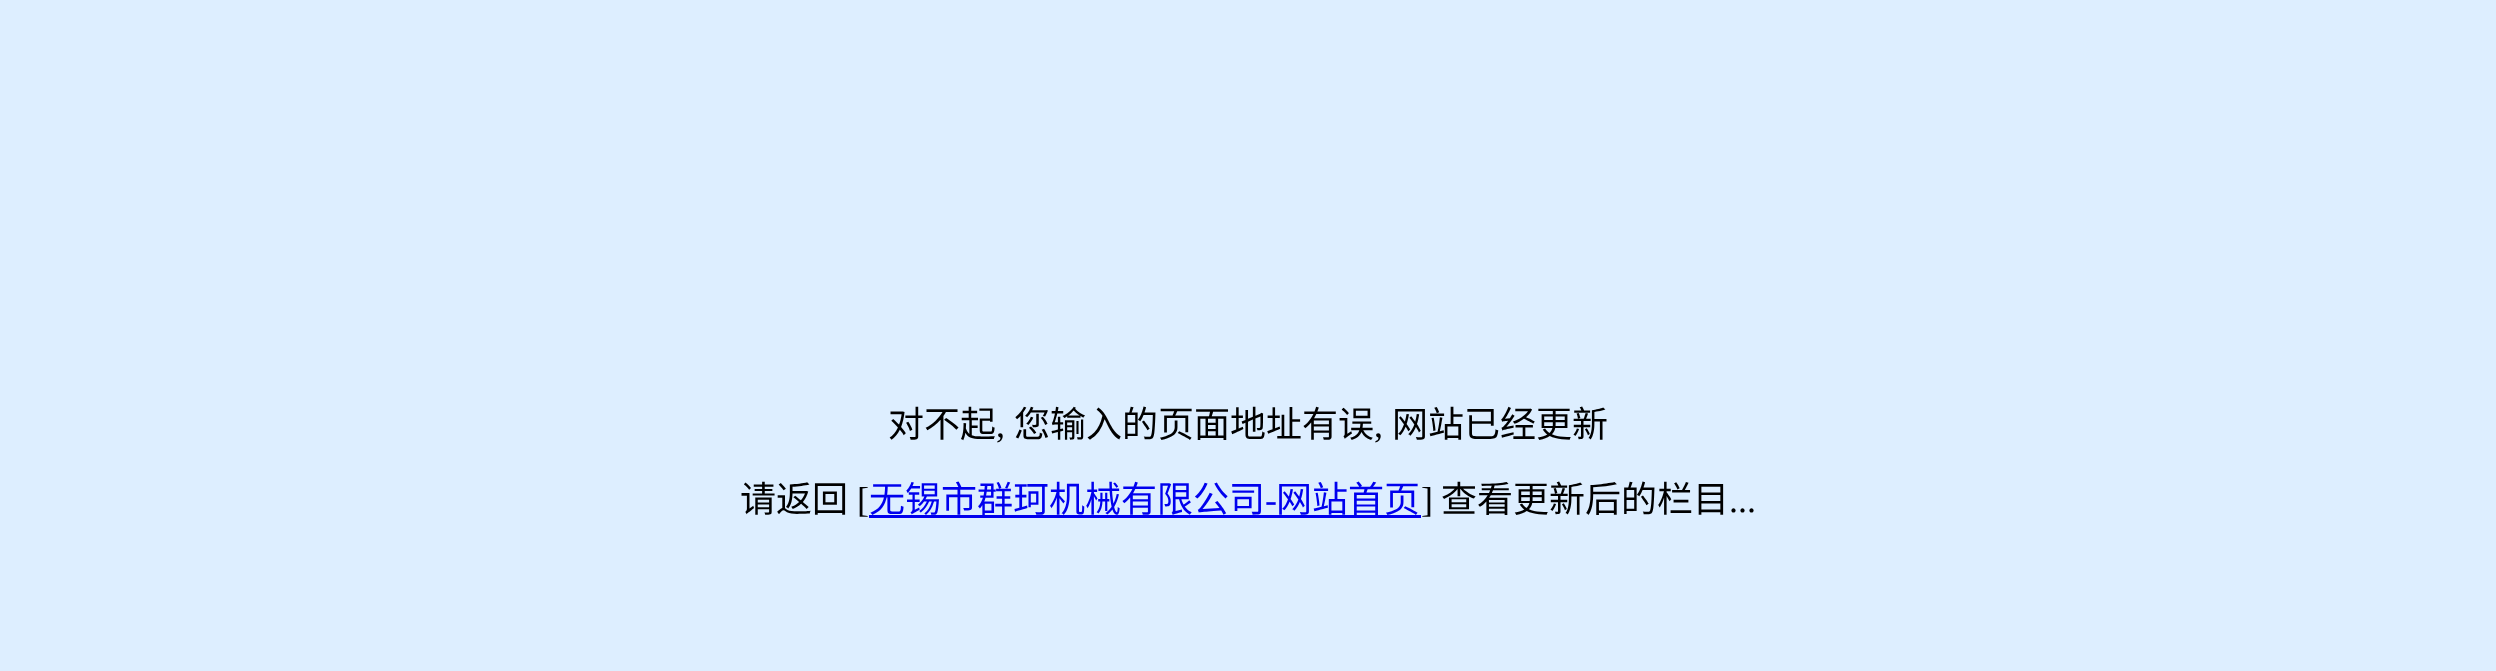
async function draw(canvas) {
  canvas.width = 2496;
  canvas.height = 671;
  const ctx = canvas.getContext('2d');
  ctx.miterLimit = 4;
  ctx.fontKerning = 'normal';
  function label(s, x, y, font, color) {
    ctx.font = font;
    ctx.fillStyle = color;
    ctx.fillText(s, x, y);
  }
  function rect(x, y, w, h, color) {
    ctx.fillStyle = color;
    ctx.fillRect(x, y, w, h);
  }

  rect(0, 0, 2496, 671, '#def');
  label('对不起', 888, 437, '36px Noto Sans CJK SC', '#000');
  label(',', 996, 437, '36px Liberation Serif', '#000');
  label('您输入的页面地址有误', 1014, 437, '36px Noto Sans CJK SC', '#000');
  label(',', 1374, 437, '36px Liberation Serif', '#000');
  label('网站已经更新', 1392, 437, '36px Noto Sans CJK SC', '#000');
  label('请返回', 740, 512, '36px Noto Sans CJK SC', '#000');
  label('[', 857, 512, '36px Liberation Serif', '#000');
  label('无锡市群珂机械有限公司', 869, 512, '36px Noto Sans CJK SC', '#00e');
  label('-', 1265, 512, '36px Liberation Serif', '#00e');
  rect(869, 515, 552, 3, '#00e');
  label('网站首页', 1276, 512, '36px Noto Sans CJK SC', '#00e');
  label(']', 1421, 512, '36px Liberation Serif', '#000');
  label('查看更新后的栏目', 1441, 512, '36px Noto Sans CJK SC', '#000');
  label('...', 1729, 512, '36px Liberation Serif', '#000');
}

draw(document.querySelector('canvas'));
